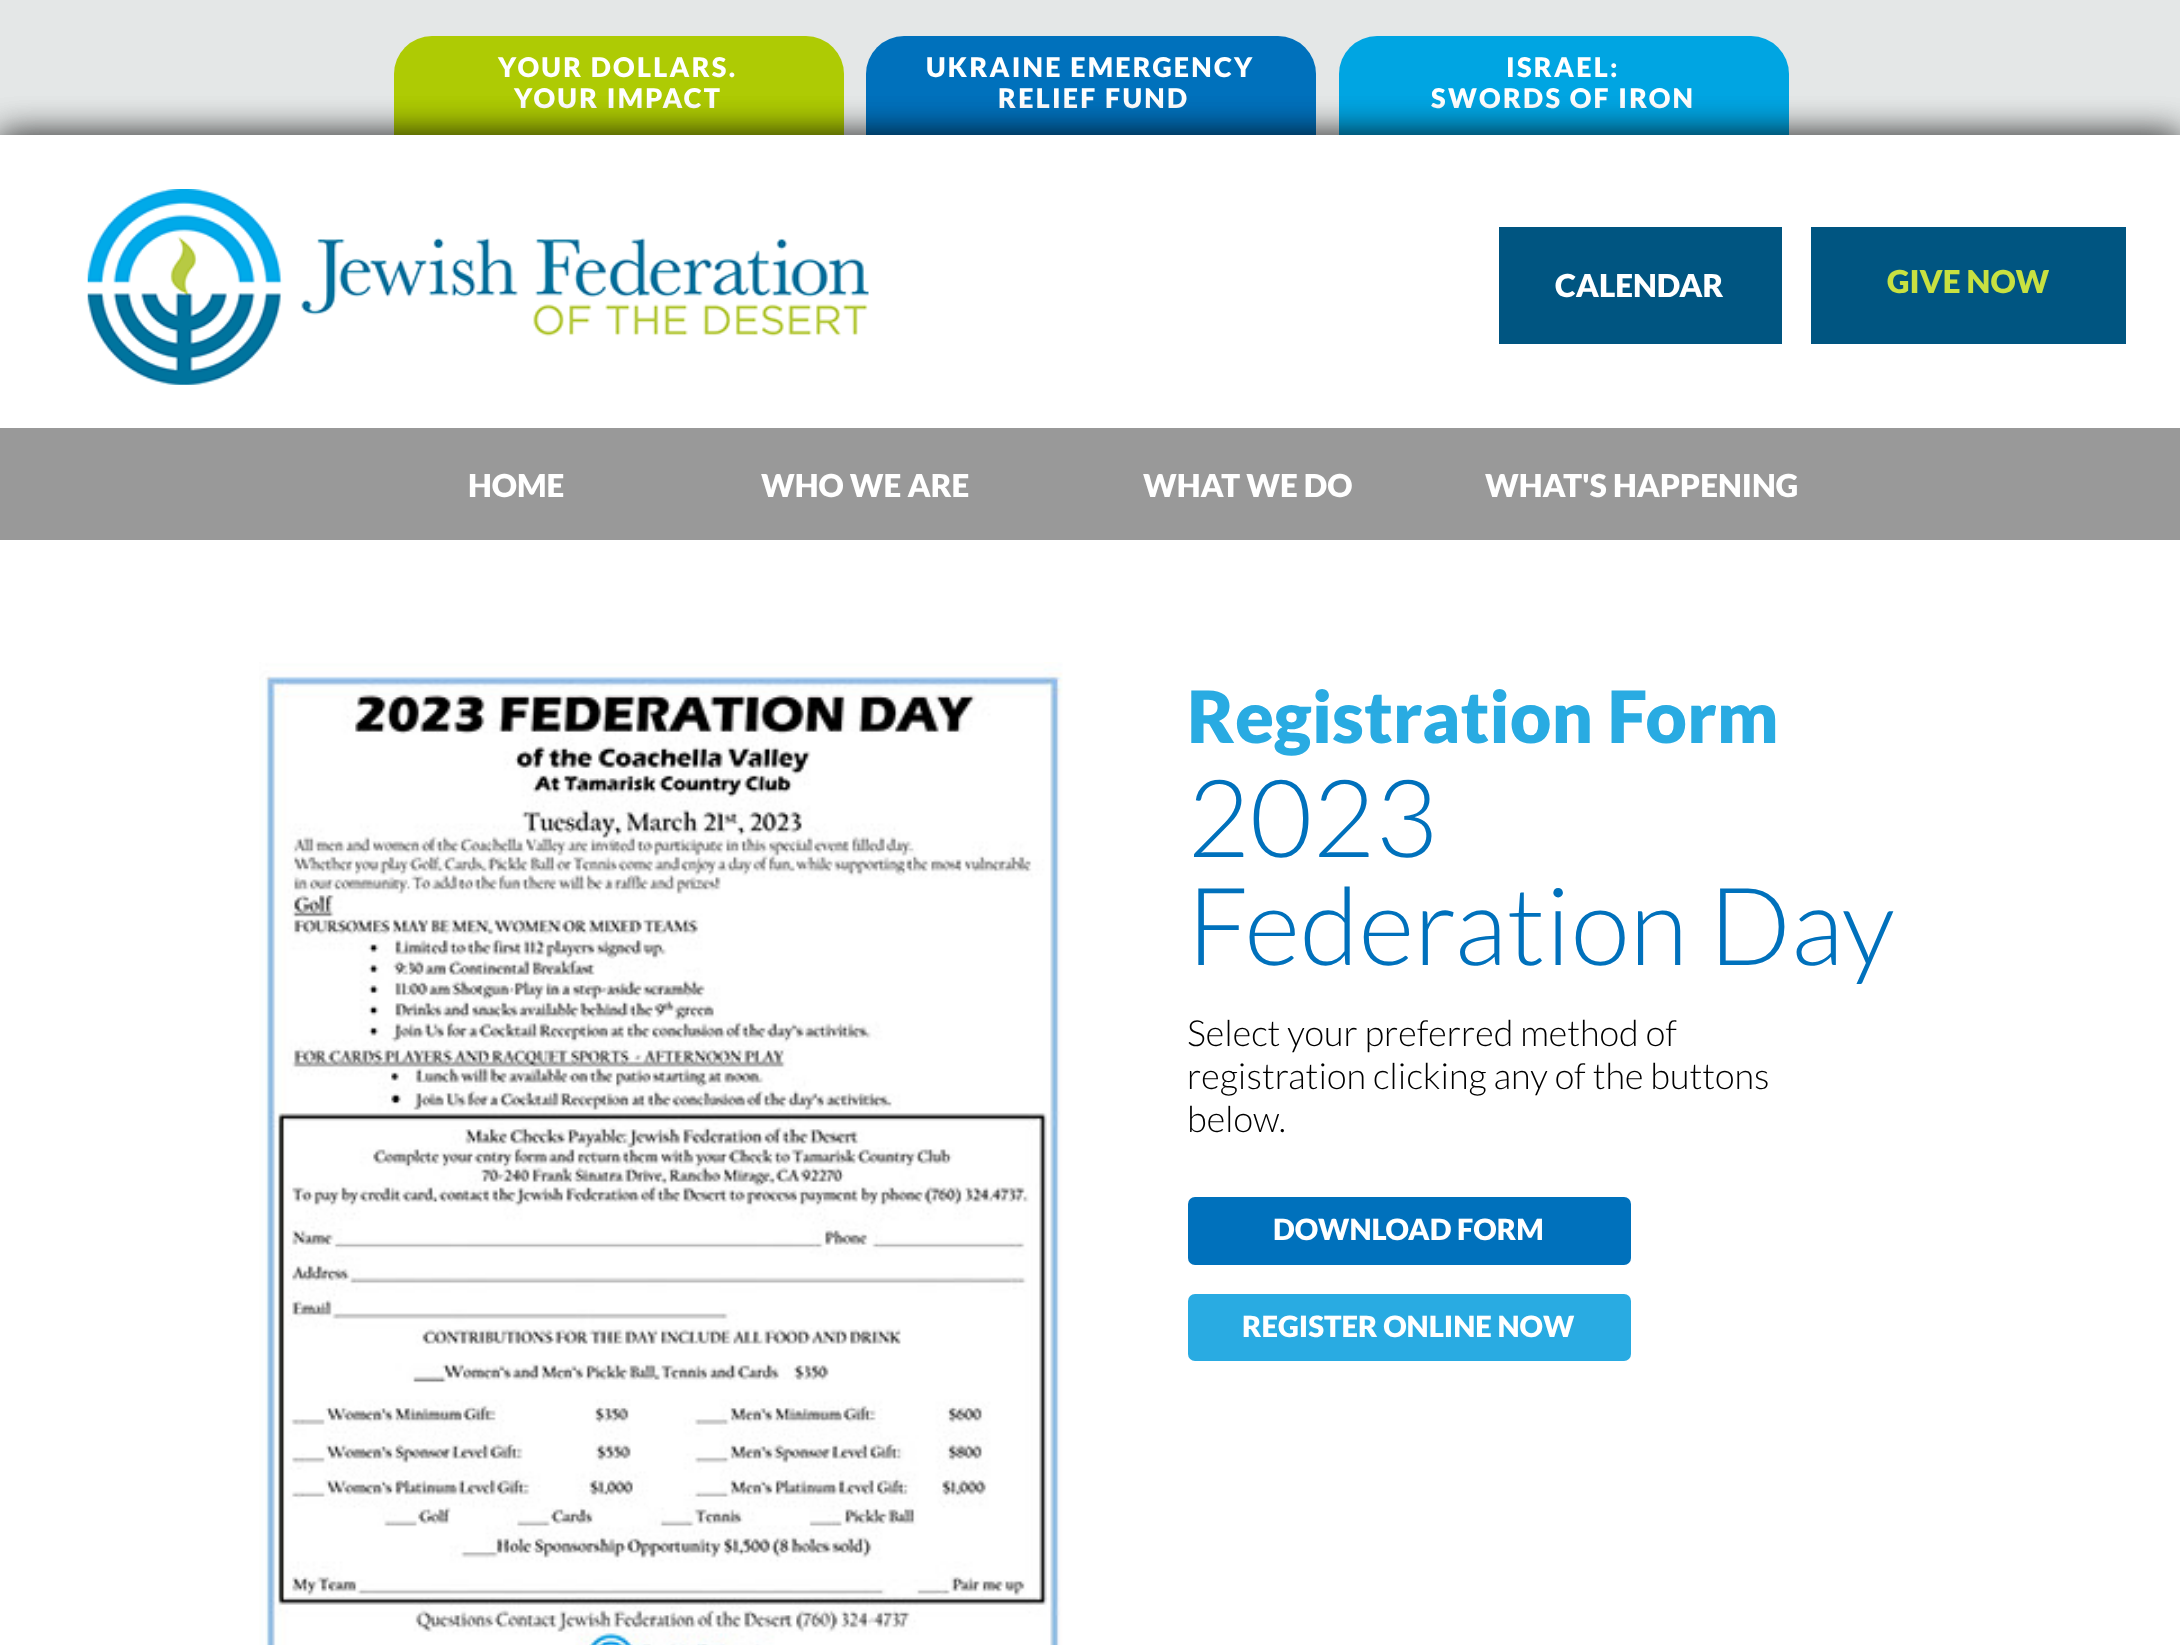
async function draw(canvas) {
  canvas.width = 2180;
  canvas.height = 1645;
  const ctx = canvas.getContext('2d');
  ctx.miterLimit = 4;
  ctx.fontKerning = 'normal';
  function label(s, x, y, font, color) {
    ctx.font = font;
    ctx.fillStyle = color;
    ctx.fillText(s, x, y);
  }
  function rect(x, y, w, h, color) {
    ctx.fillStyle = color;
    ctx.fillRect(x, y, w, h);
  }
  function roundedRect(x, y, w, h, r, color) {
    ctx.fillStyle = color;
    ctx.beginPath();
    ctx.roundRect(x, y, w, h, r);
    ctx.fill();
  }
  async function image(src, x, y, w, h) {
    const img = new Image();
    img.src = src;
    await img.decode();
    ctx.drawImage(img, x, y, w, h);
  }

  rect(0, 0, 2180, 1645, '#fff');
  rect(0, 0, 2180, 135, '#e4e7e7');
  ctx.fillStyle = '#aecb04';
  ctx.beginPath();
  ctx.roundRect(394, 36, 450, 99, [38, 38, 0, 0]);
  ctx.fill();
  ctx.letterSpacing = '2.25px';
  label('YOUR DOLLARS.', 498, 77, '900 27px Lato', '#fff');
  label('YOUR IMPACT', 514, 108, '900 27px Lato', '#fff');
  ctx.fillStyle = '#0071bc';
  ctx.beginPath();
  ctx.roundRect(866, 36, 450, 99, [38, 38, 0, 0]);
  ctx.fill();
  label('UKRAINE EMERGENCY', 926, 77, '900 27px Lato', '#fff');
  label('RELIEF FUND', 998, 108, '900 27px Lato', '#fff');
  ctx.fillStyle = '#00a5e2';
  ctx.beginPath();
  ctx.roundRect(1339, 36, 450, 99, [38, 38, 0, 0]);
  ctx.fill();
  label('ISRAEL:', 1506, 77, '900 27px Lato', '#fff');
  label('SWORDS OF IRON', 1431, 108, '900 27px Lato', '#fff');
  ctx.fillStyle = '#00000080';
  ctx.filter = 'blur(17px)';
  ctx.beginPath();
  ctx.rect(0, 135, 2180, 45);
  ctx.fill();
  ctx.filter = 'none';
  ctx.filter = 'blur(17px)';
  ctx.beginPath();
  ctx.rect(0, 135, 2180, 45);
  ctx.fill();
  ctx.filter = 'none';
  rect(1811, 227, 315, 117, '#005581');
  ctx.letterSpacing = '0px';
  label('GIVE NOW', 1887, 293, '900 31.5px Lato', '#c8e141');
  rect(0, 428, 2180, 112, '#999');
  label('HOME', 468, 497, '900 31.5px Lato', '#fff');
  label('WHO WE ARE', 761, 497, '900 31.5px Lato', '#fff');
  label('WHAT WE DO', 1143, 497, '900 31.5px Lato', '#fff');
  label('WHAT\'S HAPPENING', 1485, 497, '900 31.5px Lato', '#fff');
  await image('assets/img1.png', 259, 662, 804, 983);
  label('Registration Form', 1187, 743, '900 72px Lato', '#29abe2');
  label('2023', 1187, 857, '300 108px Lato', '#0071bc');
  label('Federation Day', 1187, 965, '300 108px Lato', '#0071bc');
  label('Select your preferred method of', 1187, 1046, '300 36px Lato', '#000');
  label('registration clicking any of the buttons', 1187, 1089, '300 36px Lato', '#000');
  label('below.', 1187, 1132, '300 36px Lato', '#000');
  roundedRect(1188, 1197, 443, 68, 7, '#0071bc');
  label('DOWNLOAD FORM', 1273, 1240, '900 29.25px Lato', '#fff');
  roundedRect(1188, 1294, 443, 67, 7, '#29abe2');
  label('REGISTER ONLINE NOW', 1242, 1337, '900 29.25px Lato', '#fff');
  rect(0, 135, 2180, 84, '#fff');
  await image('assets/img2.png', 87, 189, 782, 196);
  rect(1499, 227, 283, 117, '#005581');
  label('CALENDAR', 1555, 297, '900 31.5px Lato', '#fff');
}

draw(document.querySelector('canvas'));
